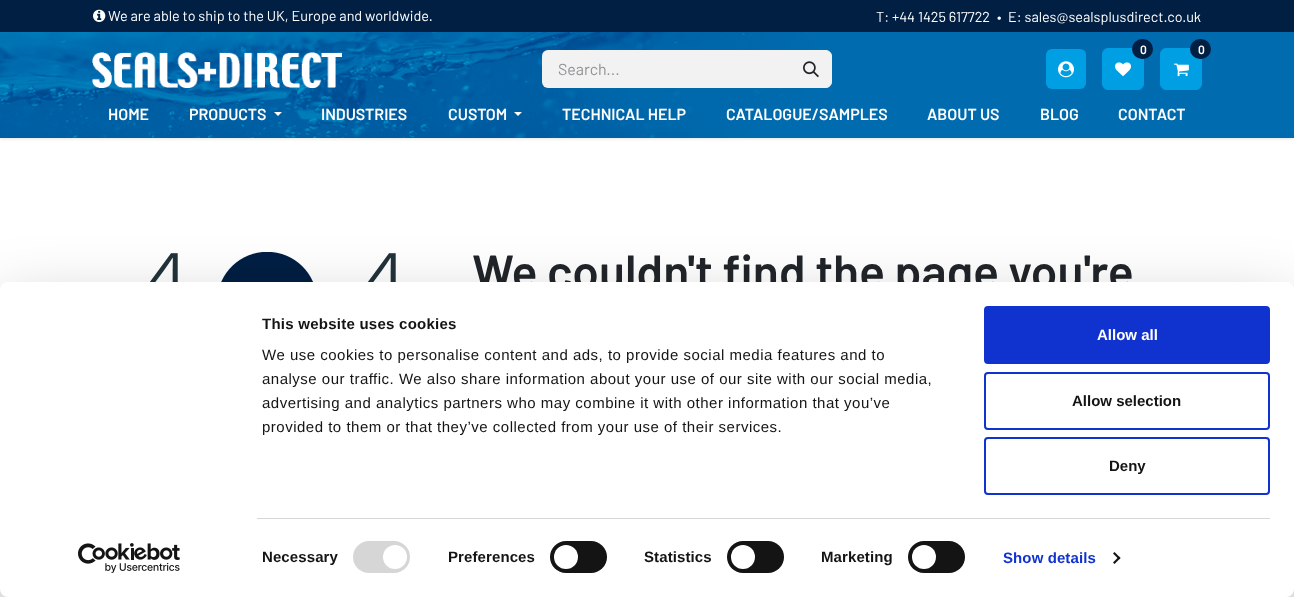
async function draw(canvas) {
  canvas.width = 1294;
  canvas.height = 597;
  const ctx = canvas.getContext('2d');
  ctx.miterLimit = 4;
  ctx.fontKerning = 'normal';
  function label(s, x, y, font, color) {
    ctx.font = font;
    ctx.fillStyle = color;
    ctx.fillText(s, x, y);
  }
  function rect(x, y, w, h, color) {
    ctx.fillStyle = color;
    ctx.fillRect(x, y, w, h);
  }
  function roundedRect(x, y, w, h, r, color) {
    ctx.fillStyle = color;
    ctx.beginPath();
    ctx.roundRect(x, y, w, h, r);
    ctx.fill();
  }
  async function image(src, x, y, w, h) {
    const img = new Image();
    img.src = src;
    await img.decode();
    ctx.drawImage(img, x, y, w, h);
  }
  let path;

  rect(0, 0, 1294, 597, '#fff');
  ctx.fillStyle = '#0000001a';
  ctx.filter = 'blur(1.5px)';
  ctx.beginPath();
  ctx.rect(0, 1, 1294, 138);
  ctx.fill();
  ctx.filter = 'none';
  await image('assets/img1.png', 0, 32, 1294, 106);
  rect(0, 0, 1294, 32, '#001f43');
  await image('assets/img2.png', 93, 9, 13, 13);
  label('We are able to ship to the UK, Europe and worldwide.', 108, 21, '14.4px Barlow', '#fff');
  label('T: +44 1425 617722', 876, 22, '14.4px Barlow', '#fff');
  label('•', 997, 22, '14.4px Barlow', '#fff');
  label('E: sales@sealsplusdirect.co.uk', 1008, 22, '14.4px Barlow', '#fff');
  roundedRect(1046, 49, 40, 40, 6, '#009ee2');
  await image('assets/img3.png', 1058, 61, 16, 17);
  ctx.beginPath();
  ctx.roundRect(1102.5, 48.5, 41, 41, 5.5);
  ctx.fill();
  ctx.strokeStyle = '#009ee2';
  ctx.stroke();
  roundedRect(1132, 39, 21, 20, 10, '#001f43');
  label('0', 1140, 54, '600 12px Barlow', '#fff');
  await image('assets/img4.png', 1115, 62, 16, 15);
  ctx.fillStyle = '#009ee2';
  ctx.beginPath();
  ctx.roundRect(1160.5, 48.5, 41, 41, 5.5);
  ctx.fill();
  ctx.stroke();
  roundedRect(1190, 39, 21, 20, 10, '#001f43');
  label('0', 1198, 54, '600 12px Barlow', '#fff');
  await image('assets/img5.png', 1174, 63, 15, 14);
  await image('assets/img6.png', 92, 52, 250, 36);
  ctx.fillStyle = '#f2f2f2';
  ctx.beginPath();
  ctx.roundRect(542, 50, 249, 38, [6, 0, 0, 6]);
  ctx.fill();
  label('Search...', 558, 75, '16px Barlow', '#909294');
  ctx.fillStyle = '#f2f2f2';
  ctx.beginPath();
  ctx.roundRect(790.5, 50.5, 41, 37, [0, 5.5, 5.5, 0]);
  ctx.fill();
  ctx.strokeStyle = '#f2f2f2';
  ctx.stroke();
  await image('assets/img7.png', 803, 61, 16, 17);
  label('HOME', 108, 120, '600 16px Barlow', '#fff');
  label('PRODUCTS', 189, 120, '600 16px Barlow', '#fff');
  path = new Path2D('M274 112H282L278 116Z');
  ctx.fill(path);
  label('INDUSTRIES', 321, 120, '600 16px Barlow', '#fff');
  label('CUSTOM', 448, 120, '600 16px Barlow', '#fff');
  path = new Path2D('M514 112H522L518 116Z');
  ctx.fill(path);
  label('TECHNICAL HELP', 562, 120, '600 16px Barlow', '#fff');
  label('CATALOGUE/SAMPLES', 726, 120, '600 16px Barlow', '#fff');
  label('ABOUT US', 927, 120, '600 16px Barlow', '#fff');
  label('BLOG', 1040, 120, '600 16px Barlow', '#fff');
  label('CONTACT', 1118, 120, '600 16px Barlow', '#fff');
  await image('assets/img8.png', 150, 252, 246, 30);
  label('We couldn\'t find the page you\'re', 472, 289, '600 48px Barlow', '#212529');
  ctx.fillStyle = '#0000004d';
  ctx.filter = 'blur(35px)';
  ctx.beginPath();
  ctx.roundRect(0, 312, 1294, 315, 8);
  ctx.fill();
  ctx.filter = 'none';
  roundedRect(0, 282, 1294, 315, 8, '#fff');
  ctx.letterSpacing = '0.25px';
  label('This website uses cookies', 262, 329, 'bold 15px Liberation Sans', '#141414');
  ctx.letterSpacing = '0.5px';
  label('We use cookies to personalise content and ads, to provide social media features and to', 262, 360, '15px Liberation Sans', '#141414');
  label('analyse our traffic. We also share information about your use of our site with our social media,', 262, 384, '15px Liberation Sans', '#141414');
  label('advertising and analytics partners who may combine it with other information that you’ve', 262, 408, '15px Liberation Sans', '#141414');
  label('provided to them or that they’ve collected from your use of their services.', 262, 432, '15px Liberation Sans', '#141414');
  rect(257, 518, 1013, 1, '#d6d6d6');
  ctx.letterSpacing = '0.1px';
  label('Necessary', 262, 562, 'bold 15px Liberation Sans', '#141414');
  roundedRect(353, 541, 57, 32, 16, '#d6d6d6');
  ctx.fillStyle = '#fff';
  ctx.beginPath();
  ctx.arc(395, 557, 12, 0, 2 * Math.PI);
  ctx.fill();
  label('Preferences', 448, 562, 'bold 15px Liberation Sans', '#141414');
  roundedRect(550, 541, 57, 32, 16, '#141414');
  ctx.fillStyle = '#fff';
  ctx.beginPath();
  ctx.arc(566, 557, 12, 0, 2 * Math.PI);
  ctx.fill();
  label('Statistics', 644, 562, 'bold 15px Liberation Sans', '#141414');
  roundedRect(727, 541, 57, 32, 16, '#141414');
  ctx.fillStyle = '#fff';
  ctx.beginPath();
  ctx.arc(743, 557, 12, 0, 2 * Math.PI);
  ctx.fill();
  label('Marketing', 821, 562, 'bold 15px Liberation Sans', '#141414');
  roundedRect(908, 541, 57, 32, 16, '#141414');
  ctx.fillStyle = '#fff';
  ctx.beginPath();
  ctx.arc(924, 557, 12, 0, 2 * Math.PI);
  ctx.fill();
  label('Show details', 1003, 563, 'bold 15px Liberation Sans', '#1032cf');
  ctx.fillStyle = '#141414';
  path = new Path2D('M1114.5 552L1120.5 558L1119 559.5L1113 553.5Z');
  ctx.fill(path);
  path = new Path2D('M1119 556.5L1120.5 558L1114.5 564L1113 562.5Z');
  ctx.fill(path);
  ctx.fillStyle = '#1032cf';
  ctx.beginPath();
  ctx.roundRect(985, 307, 284, 56, 3);
  ctx.fill();
  ctx.strokeStyle = '#1032cf';
  ctx.lineWidth = 2;
  ctx.stroke();
  ctx.letterSpacing = '0px';
  label('Allow all', 1097, 340, 'bold 15px Liberation Sans', '#fff');
  ctx.beginPath();
  ctx.roundRect(985, 373, 284, 56, 3);
  ctx.stroke();
  label('Allow selection', 1072, 406, 'bold 15px Liberation Sans', '#141414');
  ctx.beginPath();
  ctx.roundRect(985, 438, 284, 56, 3);
  ctx.stroke();
  label('Deny', 1109, 471, 'bold 15px Liberation Sans', '#141414');
  await image('assets/img9.png', 78, 543, 102, 30);
}

draw(document.querySelector('canvas'));
